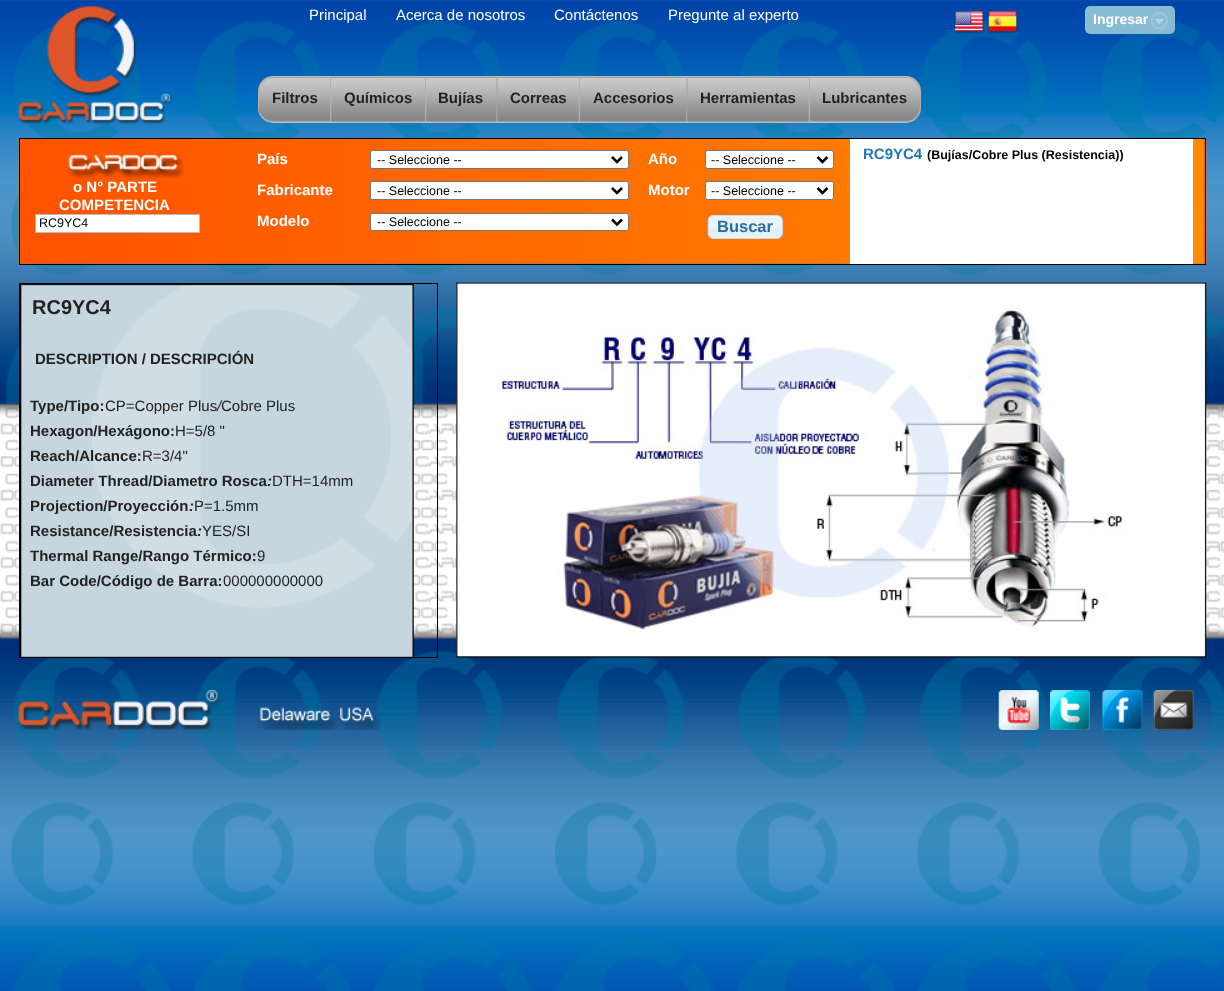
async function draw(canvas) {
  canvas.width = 1224;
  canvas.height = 991;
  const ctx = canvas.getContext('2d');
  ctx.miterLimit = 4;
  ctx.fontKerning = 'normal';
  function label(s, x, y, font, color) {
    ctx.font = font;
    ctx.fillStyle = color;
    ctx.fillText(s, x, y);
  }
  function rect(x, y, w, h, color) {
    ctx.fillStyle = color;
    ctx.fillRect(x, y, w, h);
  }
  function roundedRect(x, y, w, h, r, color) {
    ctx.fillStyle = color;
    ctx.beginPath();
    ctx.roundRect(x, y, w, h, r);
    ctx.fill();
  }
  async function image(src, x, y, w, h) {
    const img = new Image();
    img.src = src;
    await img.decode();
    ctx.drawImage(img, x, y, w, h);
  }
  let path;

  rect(0, 0, 1224, 991, '#fff');
  await image('assets/img1.png', 0, 0, 1224, 991);
  await image('assets/img2.png', 18, 6, 155, 118);
  label('Principal', 309, 20, '15px Liberation Sans', '#fff');
  label('Acerca de nosotros', 396, 20, '15px Liberation Sans', '#fff');
  label('Contáctenos', 554, 20, '15px Liberation Sans', '#fff');
  label('Pregunte al experto', 668, 20, '15px Liberation Sans', '#fff');
  await image('assets/img3.png', 953, 10, 31, 24);
  await image('assets/img4.png', 987, 10, 31, 24);
  roundedRect(1085, 6, 90, 28, 5, '#88bbd4');
  label('Ingresar', 1093, 24, 'bold 14px Liberation Sans', '#fff');
  await image('assets/img5.png', 1151, 12, 17, 17);
  roundedRect(258, 76, 663, 47, 15, '#c0c0c0');
  await image('assets/img6.png', 258, 76, 663, 47);
  ctx.beginPath();
  ctx.roundRect(259, 78, 71, 43, [15, 0, 0, 15]);
  ctx.fill();
  await image('assets/img7.png', 259, 77, 71, 44);
  label('Filtros', 272, 103, 'bold 15px Liberation Sans', '#222');
  rect(331, 78, 94, 43, '#c0c0c0');
  await image('assets/img8.png', 331, 77, 94, 45);
  label('Químicos', 344, 103, 'bold 15px Liberation Sans', '#222');
  rect(426, 78, 70, 43, '#c0c0c0');
  await image('assets/img9.png', 426, 77, 71, 45);
  label('Bujías', 438, 103, 'bold 15px Liberation Sans', '#222');
  rect(498, 78, 81, 43, '#c0c0c0');
  await image('assets/img10.png', 497, 77, 82, 45);
  label('Correas', 510, 103, 'bold 15px Liberation Sans', '#222');
  rect(580, 78, 106, 43, '#c0c0c0');
  await image('assets/img11.png', 580, 77, 107, 45);
  label('Accesorios', 593, 103, 'bold 15px Liberation Sans', '#222');
  rect(688, 78, 121, 43, '#c0c0c0');
  await image('assets/img12.png', 687, 77, 122, 45);
  label('Herramientas', 700, 103, 'bold 15px Liberation Sans', '#222');
  ctx.fillStyle = '#c0c0c0';
  ctx.beginPath();
  ctx.roundRect(810, 78, 110, 43, [0, 15, 15, 0]);
  ctx.fill();
  await image('assets/img13.png', 810, 77, 110, 44);
  label('Lubricantes', 822, 103, 'bold 15px Liberation Sans', '#222');
  await image('assets/img14.png', 18, 138, 1189, 126);
  ctx.strokeStyle = '#000';
  ctx.strokeRect(19.5, 138.5, 1186, 126);
  await image('assets/img15.png', 68, 154, 116, 25);
  label('o N° PARTE', 73, 192, 'bold 15px Liberation Sans', '#fff');
  label('COMPETENCIA', 59, 210, 'bold 15px Liberation Sans', '#fff');
  ctx.beginPath();
  ctx.rect(35.5, 214.5, 164, 18);
  ctx.fill();
  ctx.strokeStyle = '#bbb';
  ctx.stroke();
  label('RC9YC4', 39, 227, '12.5px Liberation Sans', '#000');
  label('País', 257, 164, 'bold 15px Liberation Sans', '#fff');
  ctx.beginPath();
  ctx.roundRect(370.5, 150.5, 258, 18, 2);
  ctx.fill();
  ctx.strokeStyle = '#767676';
  ctx.stroke();
  path = new Path2D('M612 157L617 162L622 157');
  ctx.strokeStyle = '#000';
  ctx.lineWidth = 2.5;
  ctx.stroke(path);
  label('-- Seleccione --', 377, 164, '12.5px Liberation Sans', '#000');
  label('Fabricante', 257, 195, 'bold 15px Liberation Sans', '#fff');
  ctx.beginPath();
  ctx.roundRect(370.5, 181.5, 258, 18, 2);
  ctx.fill();
  ctx.strokeStyle = '#767676';
  ctx.lineWidth = 1;
  ctx.stroke();
  path = new Path2D('M612 188L617 193L622 188');
  ctx.strokeStyle = '#000';
  ctx.lineWidth = 2.5;
  ctx.stroke(path);
  label('-- Seleccione --', 377, 195, '12.5px Liberation Sans', '#000');
  label('Modelo', 257, 226, 'bold 15px Liberation Sans', '#fff');
  ctx.beginPath();
  ctx.roundRect(370.5, 213.5, 258, 17, 2);
  ctx.fill();
  ctx.strokeStyle = '#767676';
  ctx.lineWidth = 1;
  ctx.stroke();
  path = new Path2D('M612 219.5L617 224.5L622 219.5');
  ctx.strokeStyle = '#000';
  ctx.lineWidth = 2.5;
  ctx.stroke(path);
  label('-- Seleccione --', 377, 226, '12.5px Liberation Sans', '#000');
  label('Año', 648, 164, 'bold 15px Liberation Sans', '#fff');
  ctx.beginPath();
  ctx.roundRect(705.5, 150.5, 128, 18, 2);
  ctx.fill();
  ctx.strokeStyle = '#767676';
  ctx.lineWidth = 1;
  ctx.stroke();
  path = new Path2D('M817.5 157L822.5 162L827.5 157');
  ctx.strokeStyle = '#000';
  ctx.lineWidth = 2.5;
  ctx.stroke(path);
  label('-- Seleccione --', 711, 164, '12.5px Liberation Sans', '#000');
  label('Motor', 648, 195, 'bold 15px Liberation Sans', '#fff');
  ctx.beginPath();
  ctx.roundRect(705.5, 181.5, 128, 18, 2);
  ctx.fill();
  ctx.strokeStyle = '#767676';
  ctx.lineWidth = 1;
  ctx.stroke();
  path = new Path2D('M817.5 188L822.5 193L827.5 188');
  ctx.strokeStyle = '#000';
  ctx.lineWidth = 2.5;
  ctx.stroke(path);
  label('-- Seleccione --', 711, 195, '12.5px Liberation Sans', '#000');
  await image('assets/img16.png', 707, 215, 76, 24);
  ctx.beginPath();
  ctx.roundRect(708.5, 215.5, 74, 23, 5.5);
  ctx.strokeStyle = '#c5dbec';
  ctx.lineWidth = 1;
  ctx.stroke();
  label('Buscar', 717, 232, 'bold 16.5px Liberation Sans', '#2e6e9e');
  rect(850, 139, 343, 125, '#fff');
  label('RC9YC4', 863, 159, 'bold 15px Liberation Sans', '#27b');
  label('(Bujías/Cobre Plus (Resistencia))', 927, 159, 'bold 12.5px Liberation Sans', '#000');
  await image('assets/img17.png', 20, 284, 394, 373);
  ctx.strokeStyle = '#000';
  ctx.strokeRect(19.5, 283.5, 418, 374);
  label('RC9YC4', 32, 314, 'bold 20px Liberation Sans', '#222');
  label('DESCRIPTION / DESCRIPCIÓN', 35, 364, 'bold 15px Liberation Sans', '#222');
  label('Type/Tipo:', 30, 411, 'bold 15px Liberation Sans', '#222');
  label('CP=Copper Plus', 105, 411, '15px Liberation Sans', '#222');
  label('/', 217, 411, 'italic 15px Liberation Sans', '#222');
  label('Cobre Plus', 221, 411, '15px Liberation Sans', '#222');
  label('Hexagon/Hexágono:', 30, 436, 'bold 15px Liberation Sans', '#222');
  label('H=5/8 "', 175, 436, '15px Liberation Sans', '#222');
  label('Reach/Alcance:', 30, 461, 'bold 15px Liberation Sans', '#222');
  label('R=3/4"', 142, 461, '15px Liberation Sans', '#222');
  label('Diameter Thread/Diametro Rosca', 30, 486, 'bold 15px Liberation Sans', '#222');
  label(':', 267, 486, 'italic bold 15px Liberation Sans', '#222');
  label('DTH=14mm', 272, 486, '15px Liberation Sans', '#222');
  label('Projection/Proyección', 30, 511, 'bold 15px Liberation Sans', '#222');
  label(':', 189, 511, 'italic bold 15px Liberation Sans', '#222');
  label('P=1.5mm', 194, 511, '15px Liberation Sans', '#222');
  label('Resistance/Resistencia', 30, 536, 'bold 15px Liberation Sans', '#222');
  label(':', 197, 536, 'italic bold 15px Liberation Sans', '#222');
  label('YES/SI', 202, 536, '15px Liberation Sans', '#222');
  label('Thermal Range/Rango Térmico:', 30, 561, 'bold 15px Liberation Sans', '#222');
  label('9', 257, 561, '15px Liberation Sans', '#222');
  label('Bar Code/Código de Barra:', 30, 586, 'bold 15px Liberation Sans', '#222');
  label('000000000000', 223, 586, '15px Liberation Sans', '#222');
  await image('assets/img18.png', 456, 282, 751, 376);
  await image('assets/img19.png', 18, 690, 363, 40);
  await image('assets/img20.png', 998, 690, 41, 40);
  await image('assets/img21.png', 1050, 690, 40, 40);
  await image('assets/img22.png', 1102, 690, 41, 40);
  await image('assets/img23.png', 1153, 690, 41, 40);
}

draw(document.querySelector('canvas'));
